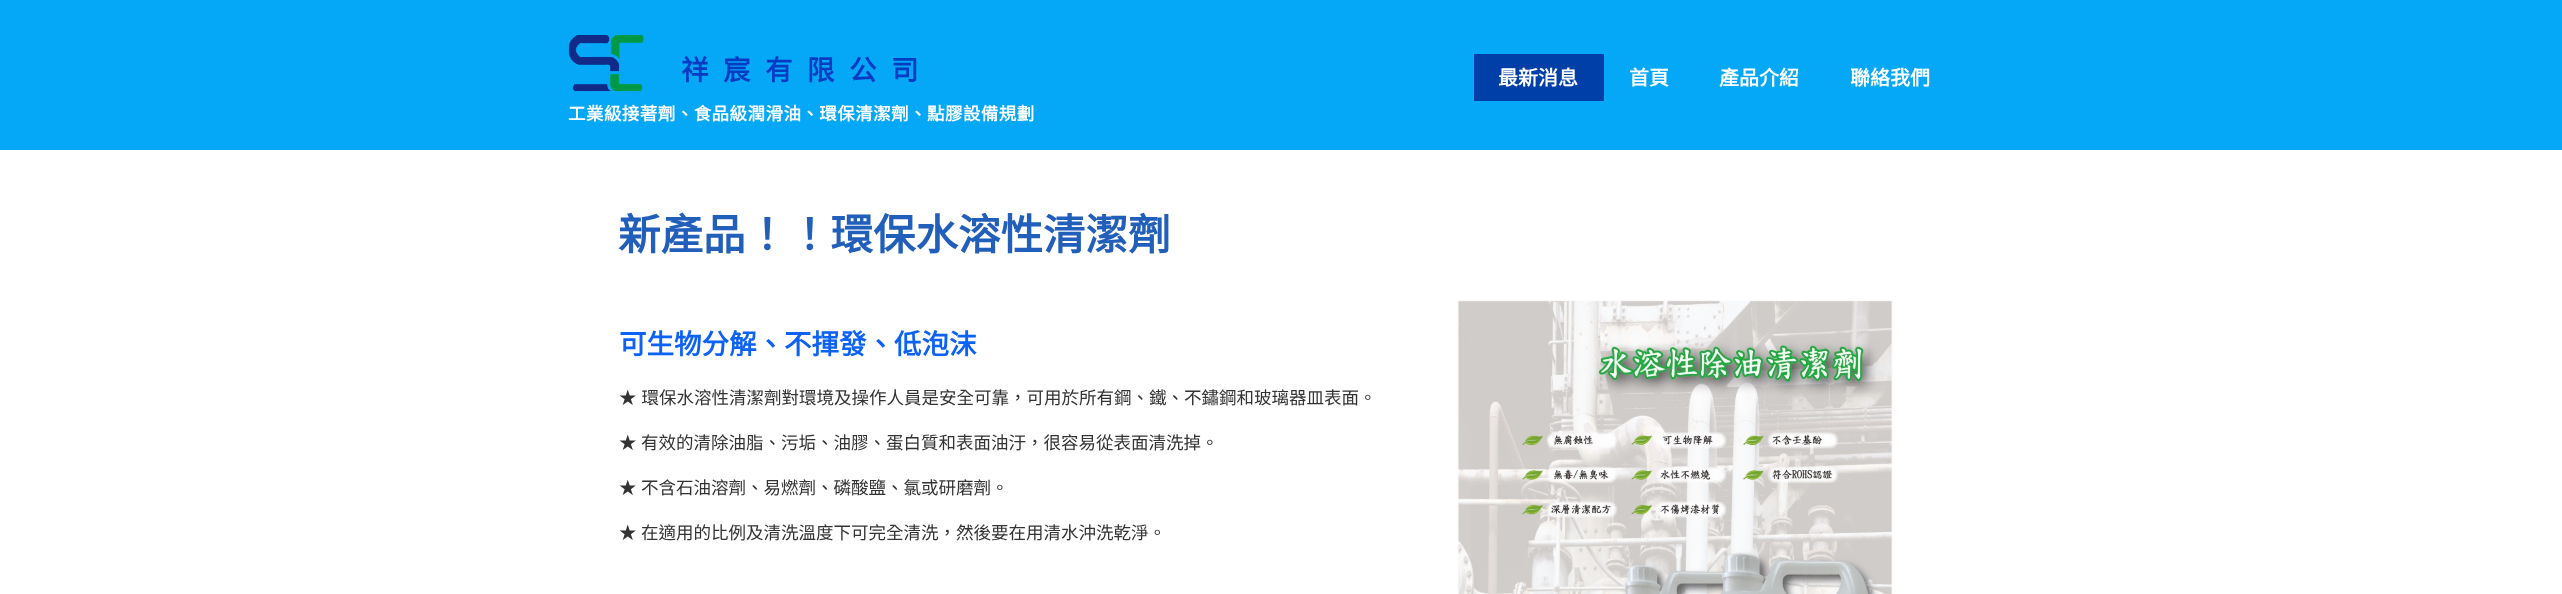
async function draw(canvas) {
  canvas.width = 2562;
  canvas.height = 594;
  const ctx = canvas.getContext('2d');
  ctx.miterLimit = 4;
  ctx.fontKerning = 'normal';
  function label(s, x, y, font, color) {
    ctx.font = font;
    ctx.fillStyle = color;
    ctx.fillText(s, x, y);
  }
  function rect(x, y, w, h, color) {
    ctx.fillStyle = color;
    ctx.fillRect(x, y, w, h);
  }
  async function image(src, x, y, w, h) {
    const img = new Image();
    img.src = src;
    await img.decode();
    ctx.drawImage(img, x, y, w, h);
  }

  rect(0, 0, 2562, 594, '#05a7f7');
  await image('assets/img1.png', 568, 35, 76, 57);
  label('祥', 681, 80, 'bold 27.5px Noto Sans CJK HK', '#063cc4');
  label('宸', 723, 80, 'bold 27.5px Noto Sans CJK HK', '#063cc4');
  label('有', 765, 80, 'bold 27.5px Noto Sans CJK HK', '#063cc4');
  label('限', 807, 80, 'bold 27.5px Noto Sans CJK HK', '#063cc4');
  label('公', 849, 80, 'bold 27.5px Noto Sans CJK HK', '#063cc4');
  label('司', 891, 80, 'bold 27.5px Noto Sans CJK HK', '#063cc4');
  rect(1474, 54, 130, 47, '#003ea8');
  label('最新消息', 1498, 85, 'bold 20px Noto Sans CJK HK', '#fff');
  label('首頁', 1629, 85, 'bold 20px Noto Sans CJK HK', '#fff');
  label('產品介紹', 1719, 85, 'bold 20px Noto Sans CJK HK', '#fff');
  label('聯絡我們', 1850, 85, 'bold 20px Noto Sans CJK HK', '#fff');
  ctx.letterSpacing = '0.45px';
  label('工業級接著劑、食品級潤滑油、環保清潔劑、點膠設備規劃', 568, 120, 'bold 17.5px Noto Sans CJK HK', '#fff');
  rect(0, 150, 2562, 444, '#fff');
  ctx.letterSpacing = '0px';
  label('新產品！！環保水溶性清潔劑', 618, 250, 'bold 42.5px Noto Sans CJK HK', '#225fba');
  label('可生物分解、不揮發、低泡沫', 619, 354, 'bold 27.5px Noto Sans CJK HK', '#0c62f5');
  ctx.wordSpacing = '1px';
  label('★ 環保水溶性清潔劑對環境及操作人員是安全可靠，可用於所有鋼、鐵、不鏽鋼和玻璃器皿表面。', 619, 404, '17.5px Noto Sans CJK HK', '#333');
  ctx.wordSpacing = '0px';
  label('★', 619, 449, '17.5px Noto Sans CJK HK', '#333');
  label('有效的清除油脂、污垢、油膠、蛋白質和表面油汙，很容易從表面清洗掉。', 641, 449, '17.5px Noto Sans CJK HK', '#333');
  label('★', 619, 494, '17.5px Noto Sans CJK HK', '#333');
  label('不含石油溶劑、易燃劑、磷酸鹽、氯或研磨劑。', 641, 494, '17.5px Noto Sans CJK HK', '#333');
  label('★', 619, 539, '17.5px Noto Sans CJK HK', '#333');
  label('在適用的比例及清洗溫度下可完全清洗，然後要在用清水沖洗乾淨。', 641, 539, '17.5px Noto Sans CJK HK', '#333');
  await image('assets/img2.png', 1457, 300, 436, 294);
}

draw(document.querySelector('canvas'));
